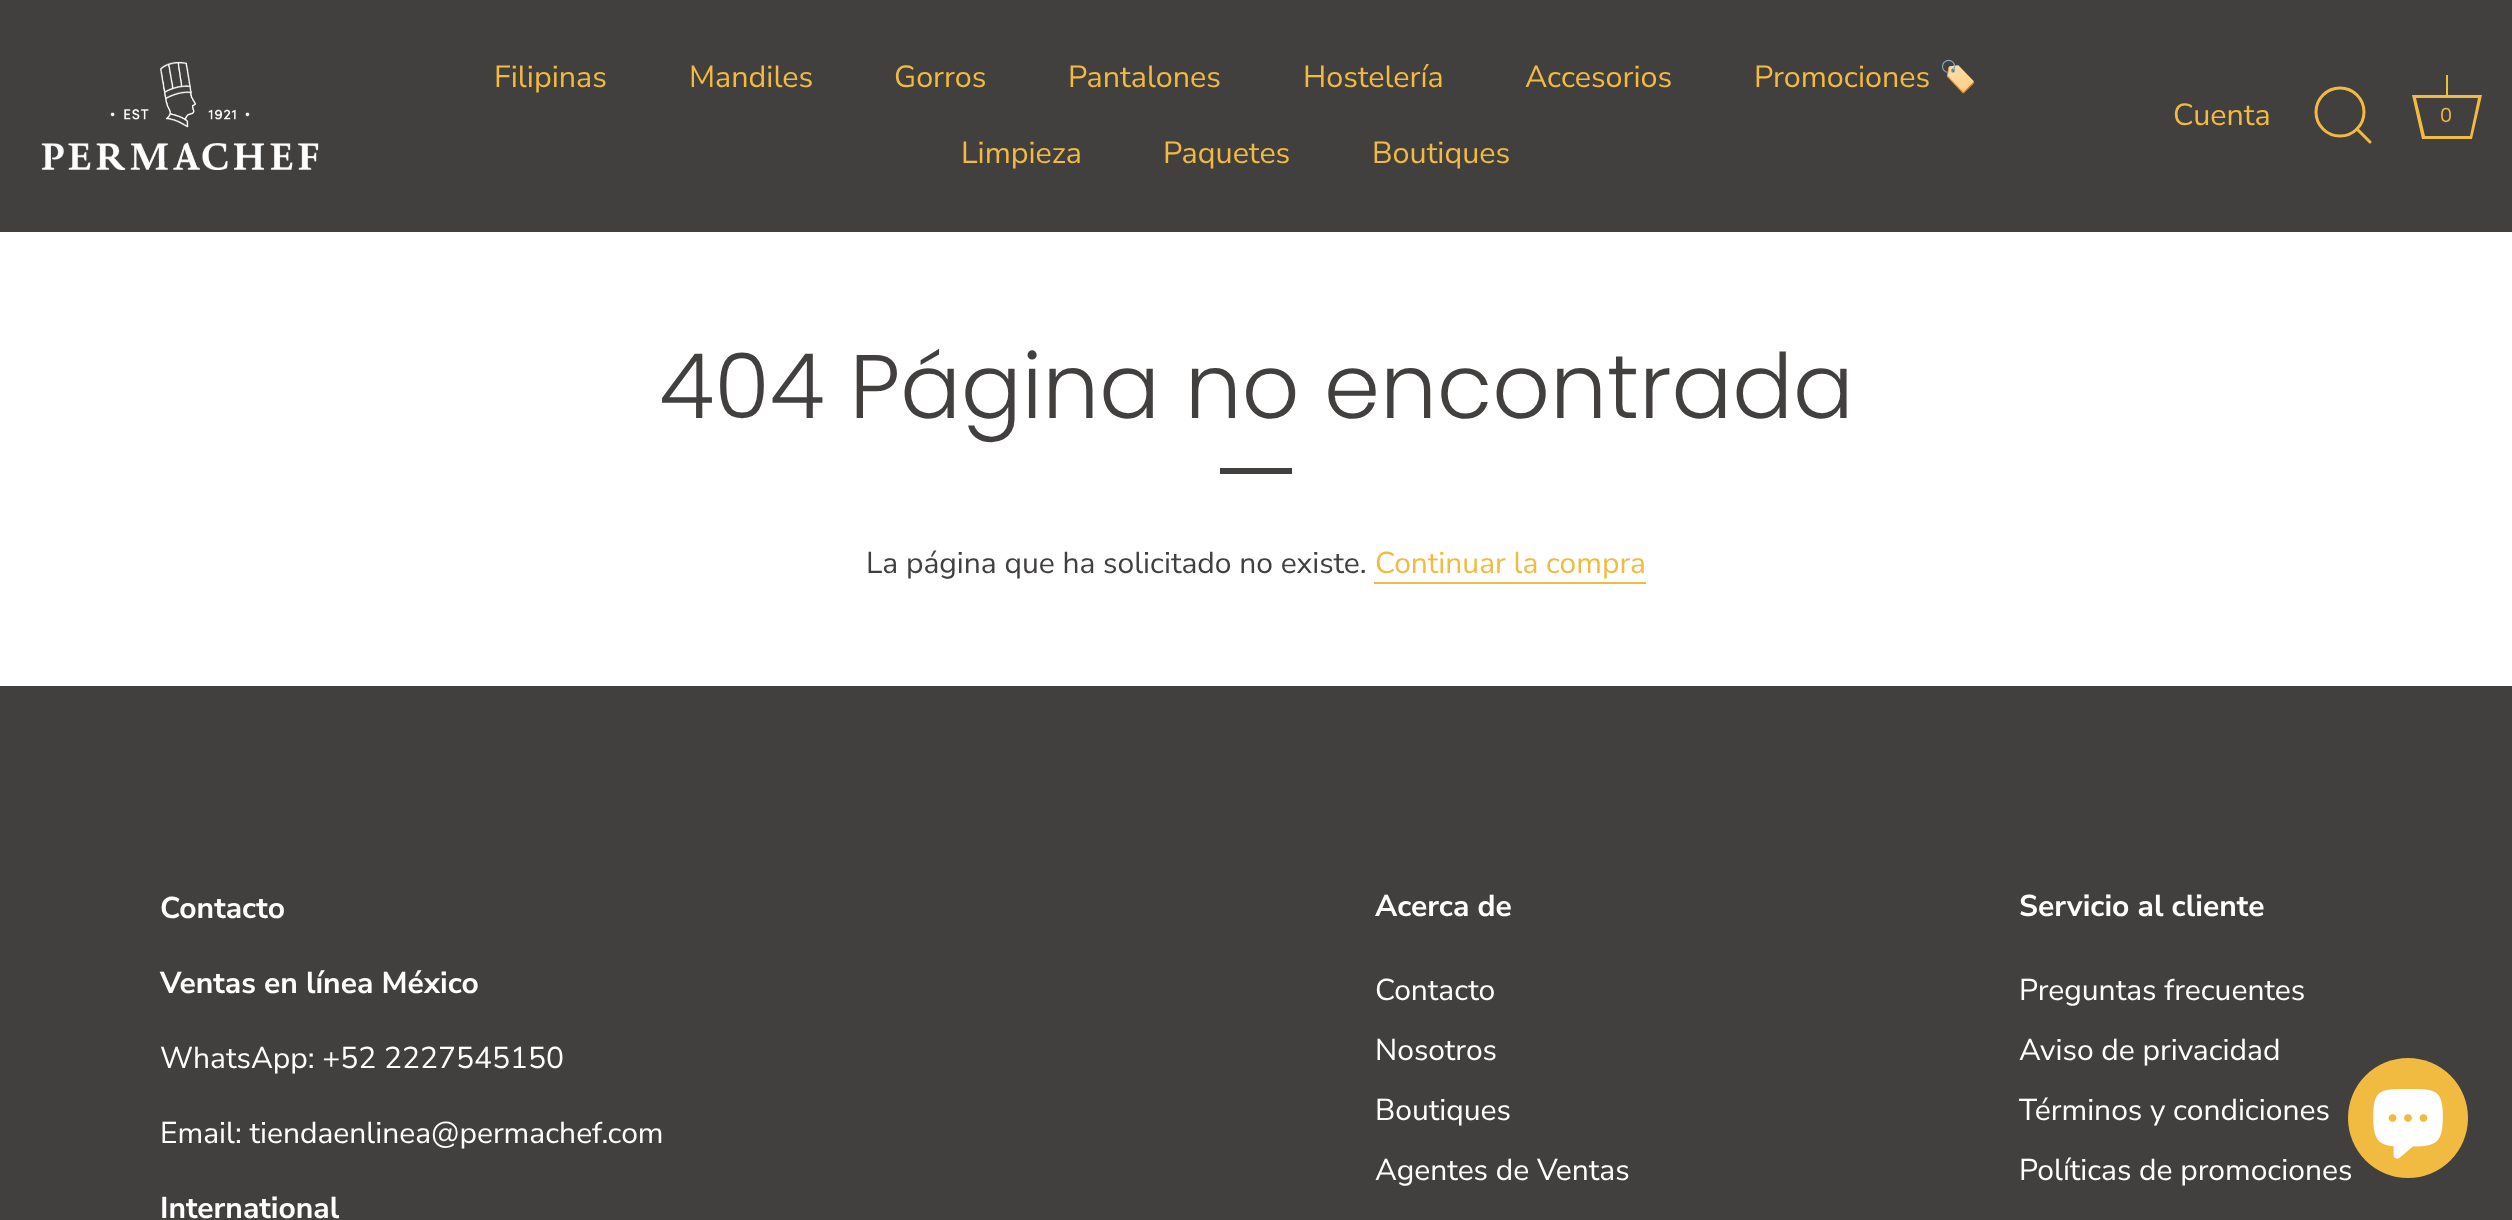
async function draw(canvas) {
  canvas.width = 2512;
  canvas.height = 1220;
  const ctx = canvas.getContext('2d');
  ctx.miterLimit = 4;
  ctx.fontKerning = 'normal';
  function label(s, x, y, font, color) {
    ctx.font = font;
    ctx.fillStyle = color;
    ctx.fillText(s, x, y);
  }
  function rect(x, y, w, h, color) {
    ctx.fillStyle = color;
    ctx.fillRect(x, y, w, h);
  }
  async function image(src, x, y, w, h) {
    const img = new Image();
    img.src = src;
    await img.decode();
    ctx.drawImage(img, x, y, w, h);
  }
  let path;

  rect(0, 0, 2512, 1220, '#fff');
  rect(0, 0, 2512, 232, '#423f3f');
  await image('assets/img1.png', 41, 61, 278, 109);
  label('Filipinas', 494, 87, '30.5px Nunito Sans', '#f1bb41');
  label('Mandiles', 689, 87, '30.5px Nunito Sans', '#f1bb41');
  label('Gorros', 894, 87, '30.5px Nunito Sans', '#f1bb41');
  label('Pantalones', 1068, 87, '30.5px Nunito Sans', '#f1bb41');
  label('Hostelería', 1303, 87, '30.5px Nunito Sans', '#f1bb41');
  label('Accesorios', 1525, 87, '30.5px Nunito Sans', '#f1bb41');
  label('Promociones', 1754, 87, '30.5px Nunito Sans', '#f1bb41');
  label('🏷️', 1939, 87, '30.5px Noto Color Emoji', '#f1bb41');
  label('Limpieza', 961, 163, '30.5px Nunito Sans', '#f1bb41');
  label('Paquetes', 1163, 163, '30.5px Nunito Sans', '#f1bb41');
  label('Boutiques', 1372, 163, '30.5px Nunito Sans', '#f1bb41');
  label('Cuenta', 2173, 125, '30.5px Nunito Sans', '#f1bb41');
  ctx.beginPath();
  ctx.arc(2340, 112, 24, 0, 2 * Math.PI);
  ctx.strokeStyle = '#f1bb41';
  ctx.lineWidth = 3;
  ctx.stroke();
  path = new Path2D('M2370 142L2357 129');
  ctx.lineCap = 'round';
  ctx.lineJoin = 'round';
  ctx.stroke(path);
  rect(2446, 75, 2, 20, '#f1bb41');
  path = new Path2D('M2478 98L2470 136H2425L2416 98H2478M2482 95H2412L2422 139H2472Z');
  ctx.fill(path);
  label('0', 2440, 122, '20px Nunito Sans', '#f1bb41');
  label('404 Página no encontrada', 659, 418, '300 90px Poppins', '#423f3f');
  rect(1220, 468, 72, 6, '#423f3f');
  label('La página que ha solicitado no existe.', 866, 573, '30px Nunito Sans', '#423f3f');
  label('Continuar la compra', 1375, 573, '30px Nunito Sans', '#f1bb41');
  rect(1374, 582, 272, 2, '#f1bb41');
  rect(0, 686, 2512, 534, '#423f3f');
  label('Contacto', 160, 918, 'bold 30px Nunito Sans', '#fff');
  label('Ventas en línea México', 160, 993, 'bold 30px Nunito Sans', '#fff');
  label('WhatsApp: +52 2227545150', 160, 1068, '30px Nunito Sans', '#fff');
  label('Email: tiendaenlinea@permachef.com', 160, 1143, '30px Nunito Sans', '#fff');
  label('International', 160, 1218, 'bold 30px Nunito Sans', '#fff');
  label('Acerca de', 1375, 916, 'bold 30px Nunito Sans', '#fff');
  label('Contacto', 1375, 1000, '30px Nunito Sans', '#fff');
  label('Nosotros', 1375, 1060, '30px Nunito Sans', '#fff');
  label('Boutiques', 1375, 1120, '30px Nunito Sans', '#fff');
  label('Agentes de Ventas', 1375, 1180, '30px Nunito Sans', '#fff');
  label('Servicio al cliente', 2019, 916, 'bold 30px Nunito Sans', '#fff');
  label('Preguntas frecuentes', 2019, 1000, '30px Nunito Sans', '#fff');
  label('Aviso de privacidad', 2019, 1060, '30px Nunito Sans', '#fff');
  label('Términos y condiciones', 2019, 1120, '30px Nunito Sans', '#fff');
  label('Políticas de promociones', 2019, 1180, '30px Nunito Sans', '#fff');
  ctx.fillStyle = '#f1bb41';
  ctx.beginPath();
  ctx.arc(2408, 1118, 60, 0, 2 * Math.PI);
  ctx.fill();
  await image('assets/img2.png', 2373, 1089, 70, 70);
}

draw(document.querySelector('canvas'));
